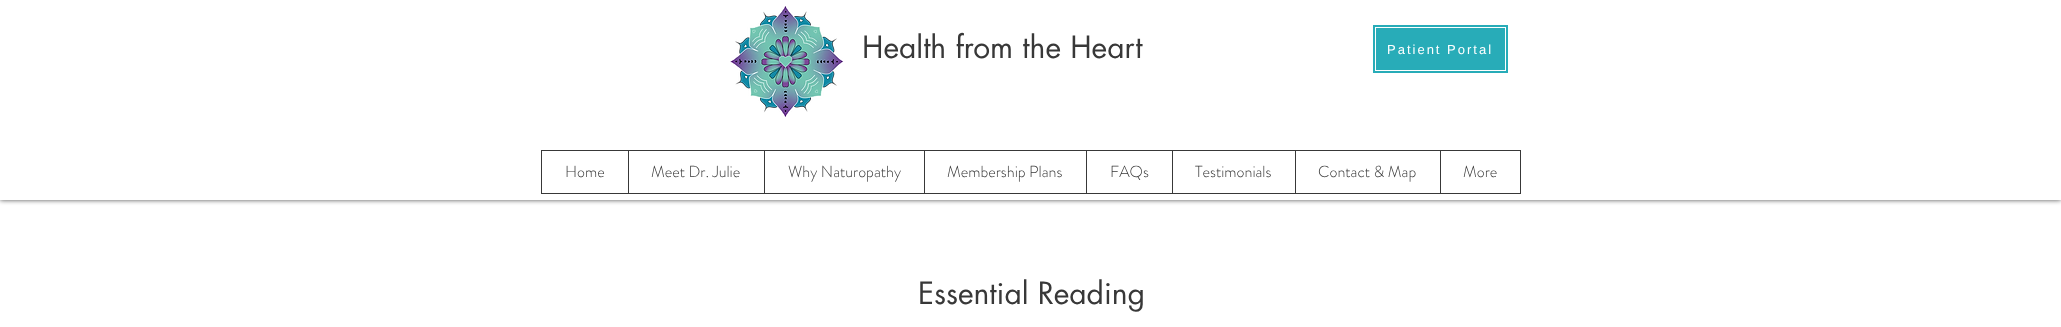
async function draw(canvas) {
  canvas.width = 2061;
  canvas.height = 327;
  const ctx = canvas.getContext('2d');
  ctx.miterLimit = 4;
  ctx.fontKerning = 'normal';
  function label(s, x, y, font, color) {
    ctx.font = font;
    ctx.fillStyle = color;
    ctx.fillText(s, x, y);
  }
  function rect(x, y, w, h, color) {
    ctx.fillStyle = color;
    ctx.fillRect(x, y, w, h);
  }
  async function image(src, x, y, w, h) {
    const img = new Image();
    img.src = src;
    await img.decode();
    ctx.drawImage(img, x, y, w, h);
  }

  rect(0, 0, 2061, 327, '#fff');
  ctx.fillStyle = '#000000b3';
  ctx.filter = 'blur(2.5px)';
  ctx.beginPath();
  ctx.rect(0, 0, 2061, 200);
  ctx.fill();
  ctx.filter = 'none';
  rect(0, 0, 2061, 200, '#fff');
  await image('assets/img1.png', 730, 6, 114, 111);
  label('Health from the Heart', 862, 58, '30px futura', '#383838');
  rect(1373, 25, 135, 48, '#28acb8');
  ctx.strokeStyle = '#fff';
  ctx.strokeRect(1375.5, 27.5, 130, 43);
  ctx.letterSpacing = '2px';
  label('Patient Portal', 1387, 54, '13px Liberation Sans', '#fff');
  ctx.strokeStyle = '#383838';
  ctx.strokeRect(541.5, 150.5, 979, 43);
  ctx.letterSpacing = '0px';
  label('Home', 565, 177, '300 16px "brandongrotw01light"', '#383838');
  rect(628, 151, 1, 42, '#383838');
  label('Meet Dr. Julie', 651, 177, '300 16px "brandongrotw01light"', '#383838');
  rect(764, 151, 1, 42, '#383838');
  label('Why Naturopathy', 788, 177, '300 16px "brandongrotw01light"', '#383838');
  rect(924, 151, 1, 42, '#383838');
  label('Membership Plans', 947, 177, '300 16px "brandongrotw01light"', '#383838');
  rect(1086, 151, 1, 42, '#383838');
  label('FAQs', 1110, 177, '300 16px "brandongrotw01light"', '#383838');
  rect(1172, 151, 1, 42, '#383838');
  label('Testimonials', 1195, 177, '300 16px "brandongrotw01light"', '#383838');
  rect(1295, 151, 1, 42, '#383838');
  label('Contact & Map', 1318, 177, '300 16px "brandongrotw01light"', '#383838');
  rect(1440, 151, 1, 42, '#383838');
  label('More', 1463, 177, '300 16px "brandongrotw01light"', '#383838');
  label('Essential Reading', 918, 304, '30px futura', '#383838');
}

draw(document.querySelector('canvas'));
